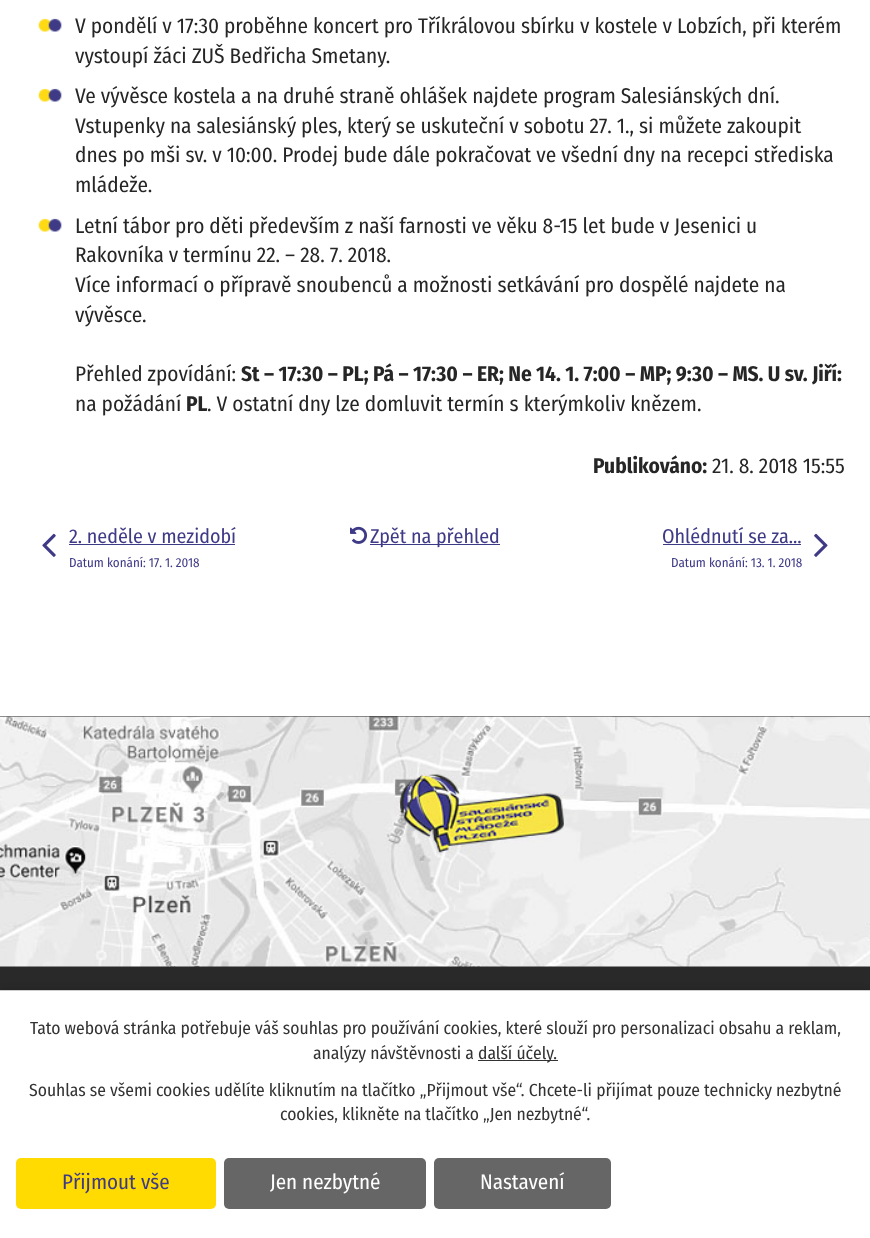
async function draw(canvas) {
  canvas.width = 870;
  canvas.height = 1238;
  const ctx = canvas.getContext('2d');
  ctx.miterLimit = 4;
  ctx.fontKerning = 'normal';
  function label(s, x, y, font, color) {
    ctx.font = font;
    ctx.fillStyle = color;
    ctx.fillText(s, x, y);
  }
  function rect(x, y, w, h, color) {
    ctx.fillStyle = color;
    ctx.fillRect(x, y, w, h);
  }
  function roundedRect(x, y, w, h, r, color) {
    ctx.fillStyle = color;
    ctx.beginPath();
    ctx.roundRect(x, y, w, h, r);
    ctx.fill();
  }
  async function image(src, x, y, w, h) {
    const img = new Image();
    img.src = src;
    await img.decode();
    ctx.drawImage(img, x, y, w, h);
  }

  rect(0, 0, 870, 1238, '#fff');
  await image('assets/img1.png', 38, 18, 24, 14);
  label('V pondělí v 17:30 proběhne koncert pro Tříkrálovou sbírku v kostele v Lobzích, při kterém', 75, 33, '21.25px Fira Sans Condensed', '#262626');
  label('vystoupí žáci ZUŠ Bedřicha Smetany.', 75, 63, '21.25px Fira Sans Condensed', '#262626');
  await image('assets/img1.png', 38, 88, 24, 14);
  label('Ve vývěsce kostela a na druhé straně ohlášek najdete program Salesiánských dní.', 75, 103, '21.25px Fira Sans Condensed', '#262626');
  label('Vstupenky na salesiánský ples, který se uskuteční v sobotu 27. 1., si můžete zakoupit', 75, 133, '21.25px Fira Sans Condensed', '#262626');
  label('dnes po mši sv. v 10:00. Prodej bude dále pokračovat ve všední dny na recepci střediska', 75, 162, '21.25px Fira Sans Condensed', '#262626');
  label('mládeže.', 75, 192, '21.25px Fira Sans Condensed', '#262626');
  await image('assets/img1.png', 38, 218, 24, 14);
  label('Letní tábor pro děti především z naší farnosti ve věku 8-15 let bude v Jesenici u', 75, 233, '21.25px Fira Sans Condensed', '#262626');
  label('Rakovníka v termínu 22. – 28. 7. 2018.', 75, 262, '21.25px Fira Sans Condensed', '#262626');
  label('Více informací o přípravě snoubenců a možnosti setkávání pro dospělé najdete na', 75, 292, '21.25px Fira Sans Condensed', '#262626');
  label('vývěsce.', 75, 322, '21.25px Fira Sans Condensed', '#262626');
  label('Přehled zpovídání:', 75, 381, '21.25px Fira Sans Condensed', '#262626');
  label('St – 17:30 – PL; Pá – 17:30 – ER; Ne 14. 1. 7:00 – MP; 9:30 – MS. U sv. Jiří:', 241, 381, 'bold 21.25px Fira Sans Condensed', '#262626');
  label('na požádání', 75, 411, '21.25px Fira Sans Condensed', '#262626');
  label('PL', 186, 411, 'bold 21.25px Fira Sans Condensed', '#262626');
  label('. V ostatní dny lze domluvit termín s kterýmkoliv knězem.', 207, 411, '21.25px Fira Sans Condensed', '#262626');
  label('Publikováno:', 593, 473, 'bold 21.25px Fira Sans Condensed', '#262626');
  label('21. 8. 2018 15:55', 712, 473, '21.25px Fira Sans Condensed', '#262626');
  await image('assets/img2.png', 42, 533, 14, 24);
  label('2. neděle v mezidobí', 69, 543, '20px Fira Sans Condensed', '#3e3a86');
  rect(69, 544, 166, 1, '#3e3a86');
  label('Datum konání: 17. 1. 2018', 69, 567, '13px Fira Sans Condensed', '#3e3a86');
  await image('assets/img3.png', 350, 526, 18, 18);
  rect(370, 544, 130, 1, '#3e3a86');
  label('Zpět na přehled', 370, 543, '20px Fira Sans Condensed', '#3e3a86');
  label('Ohlédnutí se za…', 662, 543, '20px Fira Sans Condensed', '#3e3a86');
  rect(663, 544, 138, 1, '#3e3a86');
  label('Datum konání: 13. 1. 2018', 671, 567, '13px Fira Sans Condensed', '#3e3a86');
  await image('assets/img4.png', 814, 533, 14, 24);
  rect(0, 716, 870, 274, '#292929');
  await image('assets/img5.png', 0, 716, 870, 251);
  ctx.fillStyle = '#00000033';
  ctx.filter = 'blur(3px)';
  ctx.beginPath();
  ctx.rect(0, 990, 870, 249);
  ctx.fill();
  ctx.filter = 'none';
  rect(0, 991, 870, 247, '#fff');
  rect(0, 990, 870, 1, '#ccc');
  label('Tato webová stránka potřebuje váš souhlas pro používání cookies, které slouží pro personalizaci obsahu a reklam,', 30, 1034, '17.5px Fira Sans Condensed', '#333');
  label('analýzy návštěvnosti a', 313, 1059, '17.5px Fira Sans Condensed', '#333');
  rect(478, 1060, 80, 1, '#333');
  label('další účely.', 478, 1059, '17.5px Fira Sans Condensed', '#333');
  label('Souhlas se všemi cookies udělíte kliknutím na tlačítko „Přijmout vše“. Chcete-li přijímat pouze technicky nezbytné', 29, 1096, '17.5px Fira Sans Condensed', '#333');
  label('cookies, klikněte na tlačítko „Jen nezbytné“.', 280, 1120, '17.5px Fira Sans Condensed', '#333');
  roundedRect(16, 1158, 200, 51, 5, '#ffdb01');
  label('Přijmout vše', 62, 1189, '21px Fira Sans Condensed', '#3e3a86');
  roundedRect(224, 1158, 202, 51, 5, '#666');
  label('Jen nezbytné', 270, 1189, '21px Fira Sans Condensed', '#fff');
  roundedRect(434, 1158, 177, 51, 5, '#666');
  label('Nastavení', 480, 1189, '21px Fira Sans Condensed', '#fff');
}

draw(document.querySelector('canvas'));
